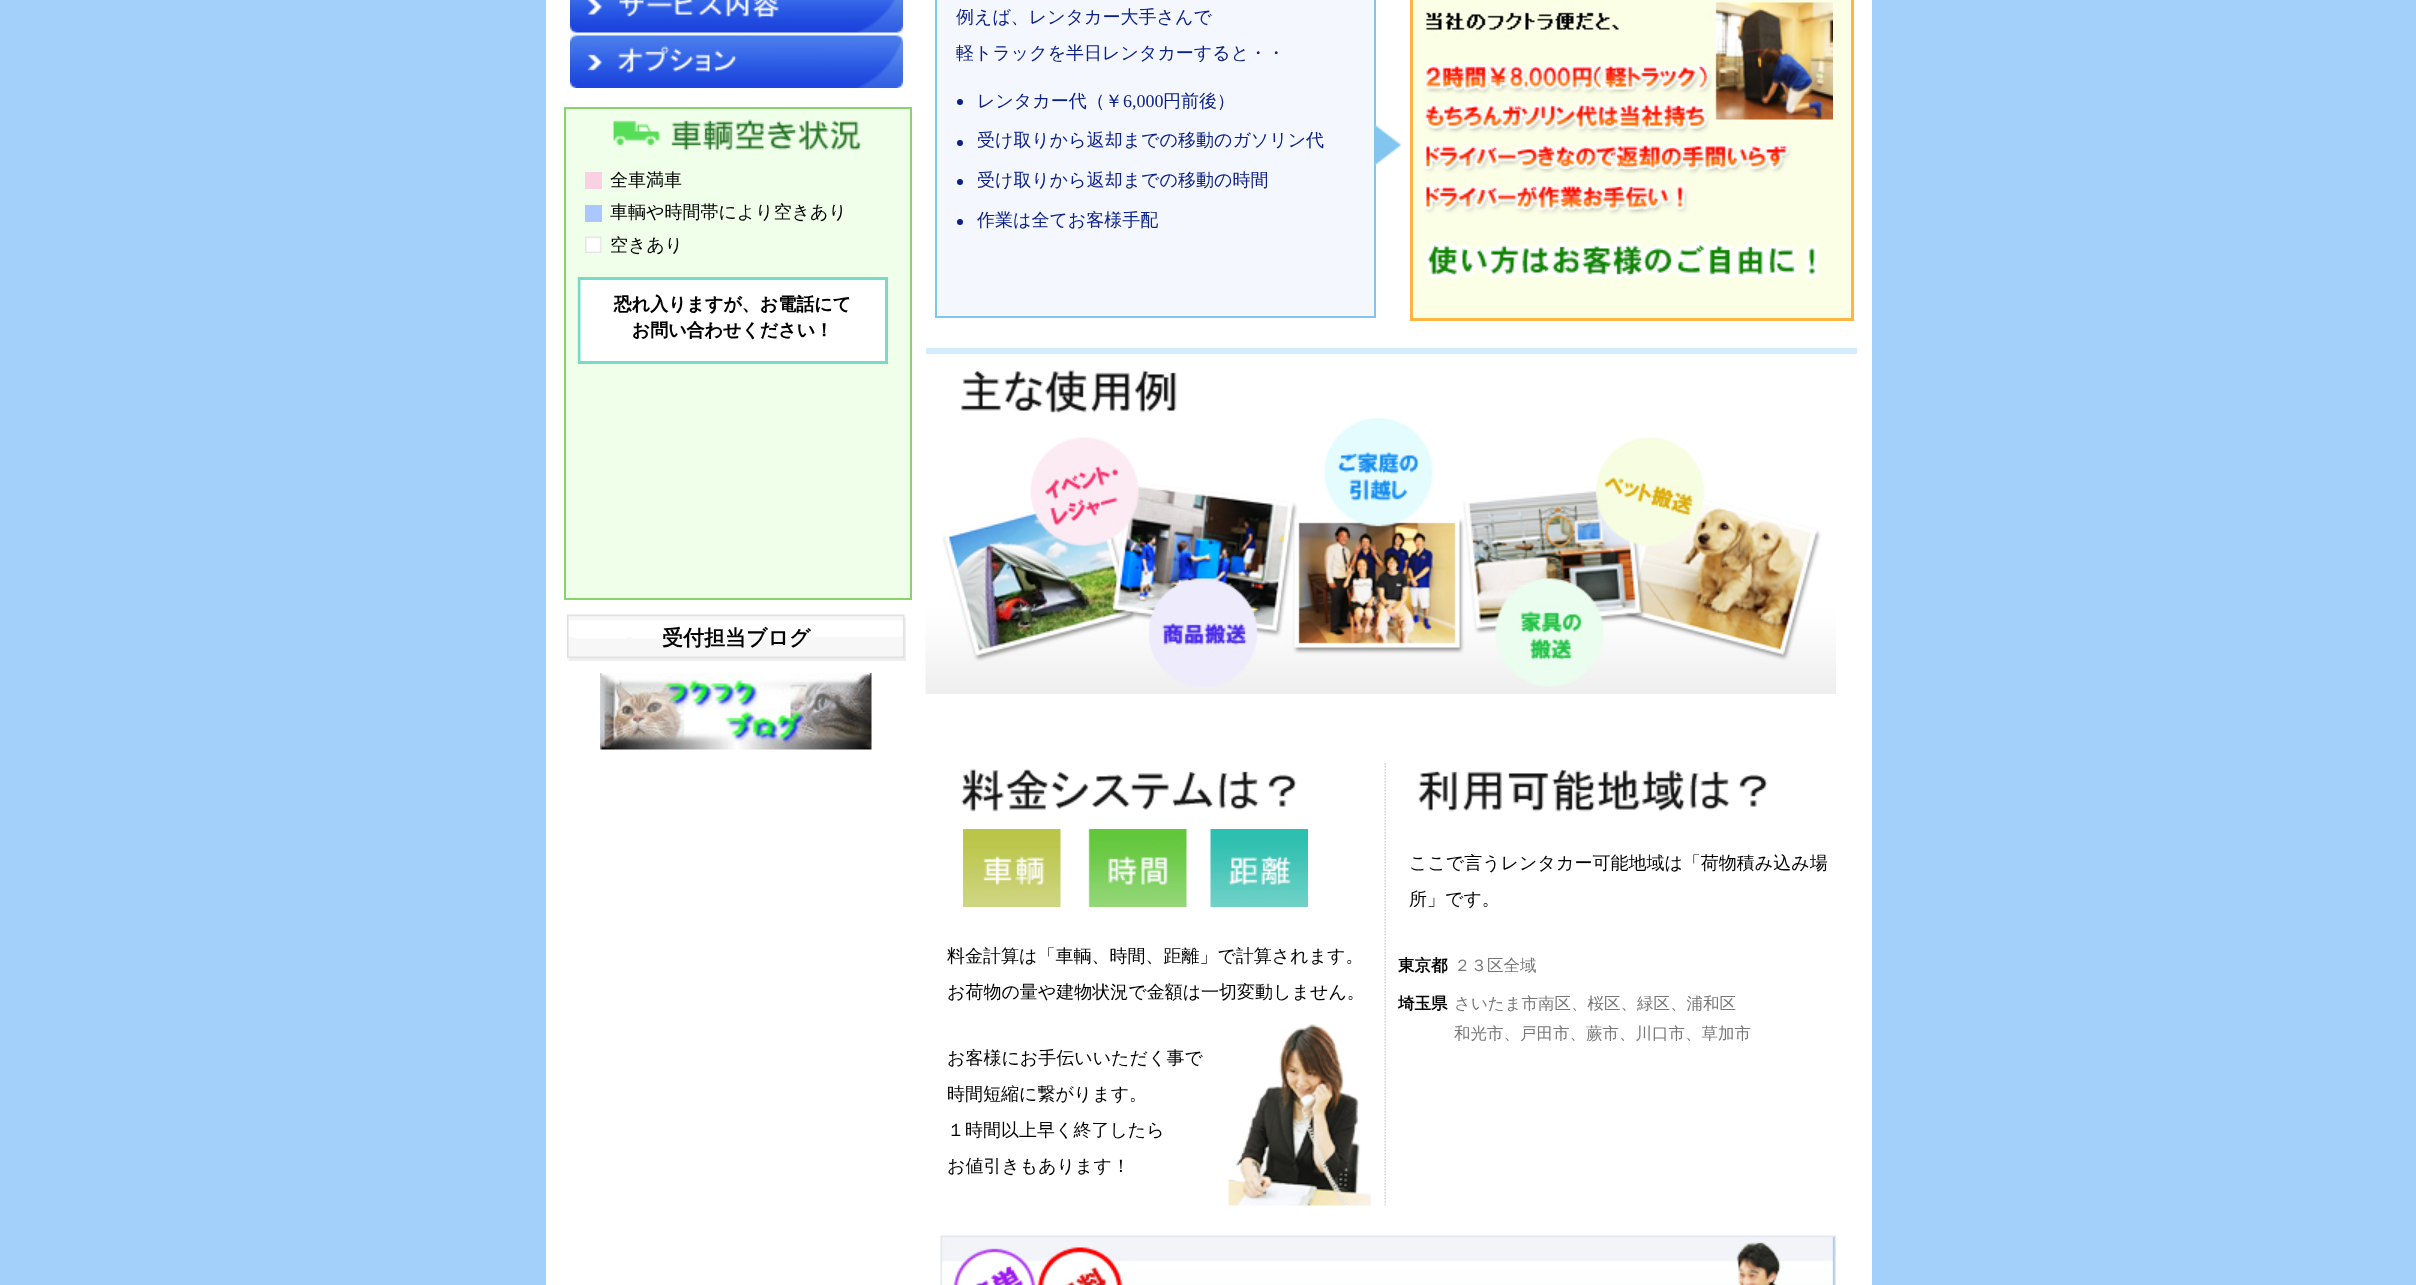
async function draw(canvas) {
  canvas.width = 2416;
  canvas.height = 1285;
  const ctx = canvas.getContext('2d');
  ctx.miterLimit = 4;
  ctx.fontKerning = 'normal';
  function label(s, x, y, font, color) {
    ctx.font = font;
    ctx.fillStyle = color;
    ctx.fillText(s, x, y);
  }
  function rect(x, y, w, h, color) {
    ctx.fillStyle = color;
    ctx.fillRect(x, y, w, h);
  }
  async function image(src, x, y, w, h) {
    const img = new Image();
    img.src = src;
    await img.decode();
    ctx.drawImage(img, x, y, w, h);
  }

  rect(0, 0, 2416, 1285, '#a2d0fb');
  rect(546, 0, 1326, 1285, '#fff');
  await image('assets/img1.png', 570, 0, 333, 88);
  ctx.fillStyle = '#f0ffea';
  ctx.beginPath();
  ctx.rect(565, 108, 346, 491);
  ctx.fill();
  ctx.strokeStyle = '#87d36c';
  ctx.lineWidth = 2;
  ctx.stroke();
  await image('assets/img2.png', 613, 119, 249, 31);
  rect(585, 172, 17, 17, '#fad1e2');
  label('全車満車', 610, 186, '500 18px WenQuanYi Zen Hei', '#000');
  rect(585, 205, 17, 17, '#abc7ff');
  label('車輌や時間帯により空きあり', 610, 218, '500 18px WenQuanYi Zen Hei', '#000');
  await image('assets/img3.png', 585, 236, 17, 17);
  label('空きあり', 610, 251, '500 18px WenQuanYi Zen Hei', '#000');
  await image('assets/img4.png', 577, 277, 311, 87);
  await image('assets/img5.png', 567, 614, 339, 47);
  label('受付担当ブログ', 662, 645, 'bold 21px WenQuanYi Zen Hei', '#000');
  await image('assets/img6.png', 600, 673, 272, 77);
  rect(926, 348, 931, 6, '#d5ebff');
  ctx.fillStyle = '#f4f7fe';
  ctx.beginPath();
  ctx.rect(936, -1, 439, 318);
  ctx.fill();
  ctx.strokeStyle = '#80c5ef';
  ctx.stroke();
  label('例えば、レンタカー大手さんで', 956, 23, '500 18px WenQuanYi Zen Hei', '#0c2088');
  label('軽トラックを半日レンタカーすると・・', 956, 59, '500 18px WenQuanYi Zen Hei', '#0c2088');
  ctx.beginPath();
  ctx.arc(960, 102, 3, 0, 2 * Math.PI);
  ctx.fill();
  label('レンタカー代（￥', 977, 107, '500 18px WenQuanYi Zen Hei', '#0c2088');
  label('6,000', 1123, 107, '18px Liberation Serif', '#0c2088');
  label('円前後）', 1163, 107, '500 18px WenQuanYi Zen Hei', '#0c2088');
  ctx.beginPath();
  ctx.arc(960, 143, 3, 0, 2 * Math.PI);
  ctx.fill();
  label('受け取りから返却までの移動のガソリン代', 977, 146, '500 18px WenQuanYi Zen Hei', '#0c2088');
  ctx.beginPath();
  ctx.arc(960, 182, 3, 0, 2 * Math.PI);
  ctx.fill();
  label('受け取りから返却までの移動の時間', 977, 186, '500 18px WenQuanYi Zen Hei', '#0c2088');
  ctx.beginPath();
  ctx.arc(960, 222, 3, 0, 2 * Math.PI);
  ctx.fill();
  label('作業は全てお客様手配', 977, 226, '500 18px WenQuanYi Zen Hei', '#0c2088');
  await image('assets/img7.png', 1375, 125, 26, 40);
  ctx.fillStyle = '#fbffe6';
  ctx.beginPath();
  ctx.rect(1411.5, -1.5, 441, 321);
  ctx.fill();
  ctx.strokeStyle = '#ffb542';
  ctx.lineWidth = 3;
  ctx.stroke();
  await image('assets/img8.png', 1422, 2, 411, 213);
  await image('assets/img9.png', 1424, 241, 395, 38);
  await image('assets/img10.png', 961, 369, 216, 44);
  await image('assets/img11.png', 925, 418, 911, 276);
  await image('assets/img12.png', 1384, 761, 2, 445);
  await image('assets/img13.png', 961, 768, 336, 44);
  await image('assets/img14.png', 963, 829, 345, 78);
  label('料金計算は「車輌、時間、距離」で計算されます。', 947, 962, '500 18px WenQuanYi Zen Hei', '#000');
  label('お荷物の量や建物状況で金額は一切変動しません。', 947, 998, '500 18px WenQuanYi Zen Hei', '#000');
  label('お客様にお手伝いいただく事で', 947, 1064, '500 18px WenQuanYi Zen Hei', '#000');
  label('時間短縮に繋がります。', 947, 1100, '500 18px WenQuanYi Zen Hei', '#000');
  label('１時間以上早く終了したら', 947, 1136, '500 18px WenQuanYi Zen Hei', '#000');
  label('お値引きもあります！', 947, 1172, '500 18px WenQuanYi Zen Hei', '#000');
  await image('assets/img15.png', 1228, 1024, 143, 182);
  await image('assets/img16.png', 1418, 769, 350, 43);
  label('ここで言うレンタカー可能地域は「荷物積み込み場', 1409, 869, '500 18px WenQuanYi Zen Hei', '#000');
  label('所」です。', 1409, 905, '500 18px WenQuanYi Zen Hei', '#000');
  label('東京都', 1398, 971, 'bold 16.5px WenQuanYi Zen Hei', '#000');
  label('２３区全域', 1454, 971, '500 16.5px WenQuanYi Zen Hei', '#777');
  label('埼玉県', 1398, 1009, 'bold 16.5px WenQuanYi Zen Hei', '#000');
  label('さいたま市南区、桜区、緑区、浦和区', 1454, 1009, '500 16.5px WenQuanYi Zen Hei', '#777');
  label('和光市、戸田市、蕨市、川口市、草加市', 1454, 1039, '500 16.5px WenQuanYi Zen Hei', '#777');
  await image('assets/img17.png', 940, 1235, 896, 50);
}

draw(document.querySelector('canvas'));
